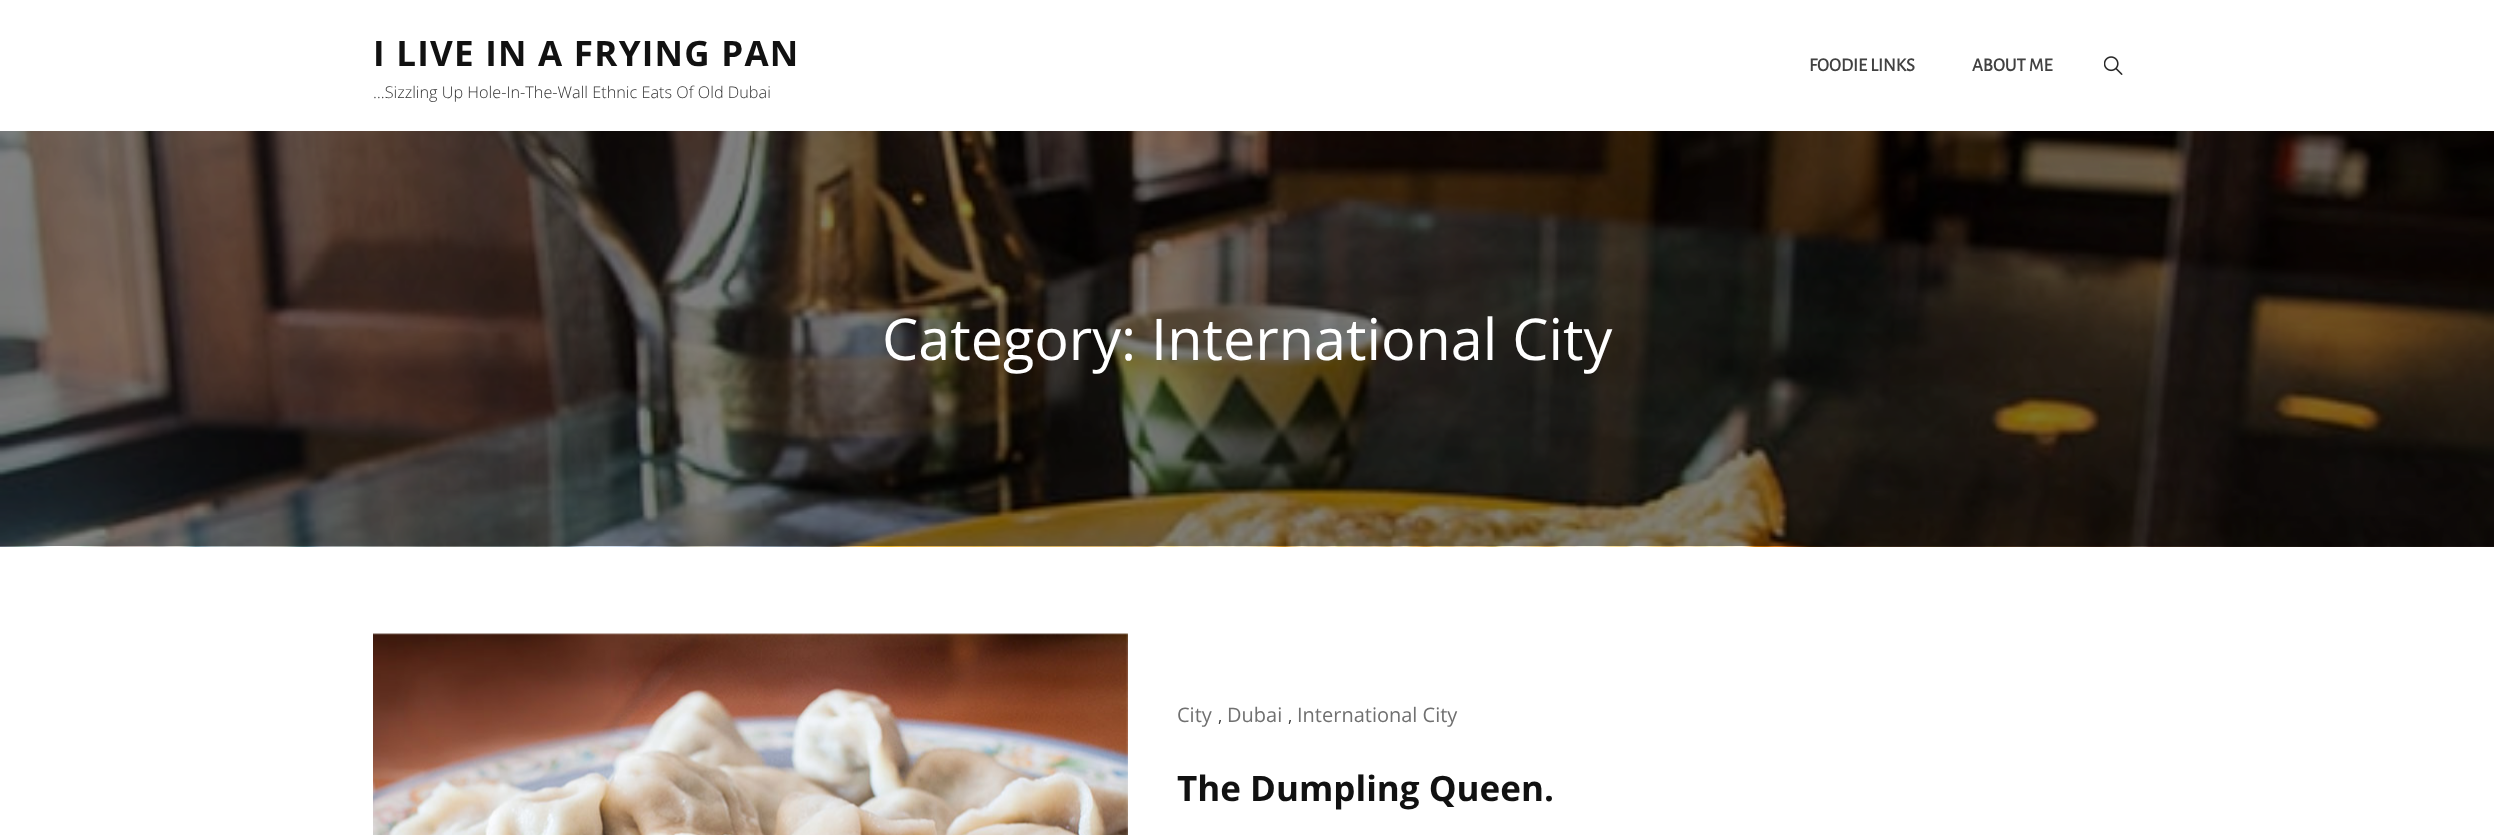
async function draw(canvas) {
  canvas.width = 2494;
  canvas.height = 835;
  const ctx = canvas.getContext('2d');
  ctx.miterLimit = 4;
  ctx.fontKerning = 'normal';
  function label(s, x, y, font, color) {
    ctx.font = font;
    ctx.fillStyle = color;
    ctx.fillText(s, x, y);
  }
  function rect(x, y, w, h, color) {
    ctx.fillStyle = color;
    ctx.fillRect(x, y, w, h);
  }
  async function image(src, x, y, w, h) {
    const img = new Image();
    img.src = src;
    await img.decode();
    ctx.drawImage(img, x, y, w, h);
  }

  rect(0, 0, 2494, 835, '#fff');
  ctx.letterSpacing = '1.25px';
  label('I LIVE IN A FRYING PAN', 373, 66, 'bold 35px Open Sans', '#111');
  ctx.letterSpacing = '0px';
  label('…Sizzling Up Hole-In-The-Wall Ethnic Eats Of Old Dubai', 373, 98, '300 16.25px Open Sans', '#333');
  label('FOODIE LINKS', 1809, 71, 'bold 18.75px Alegreya Sans', '#414141');
  label('ABOUT ME', 1972, 71, 'bold 18.75px Alegreya Sans', '#414141');
  await image('assets/img1.png', 2104, 56, 19, 19);
  await image('assets/img2.png', 0, 131, 2494, 416);
  label('Category: International City', 882, 360, '57.5px Open Sans', '#fff');
  await image('assets/img3.png', 373, 633, 755, 202);
  label('City', 1177, 722, '20px Open Sans', '#707070');
  label(',', 1218, 722, '16.25px Open Sans', '#333');
  label('Dubai', 1227, 722, '20px Open Sans', '#707070');
  label(',', 1288, 722, '16.25px Open Sans', '#333');
  label('International City', 1297, 722, '20px Open Sans', '#707070');
  label('The Dumpling Queen.', 1177, 801, 'bold 35px Open Sans', '#111');
}

draw(document.querySelector('canvas'));
